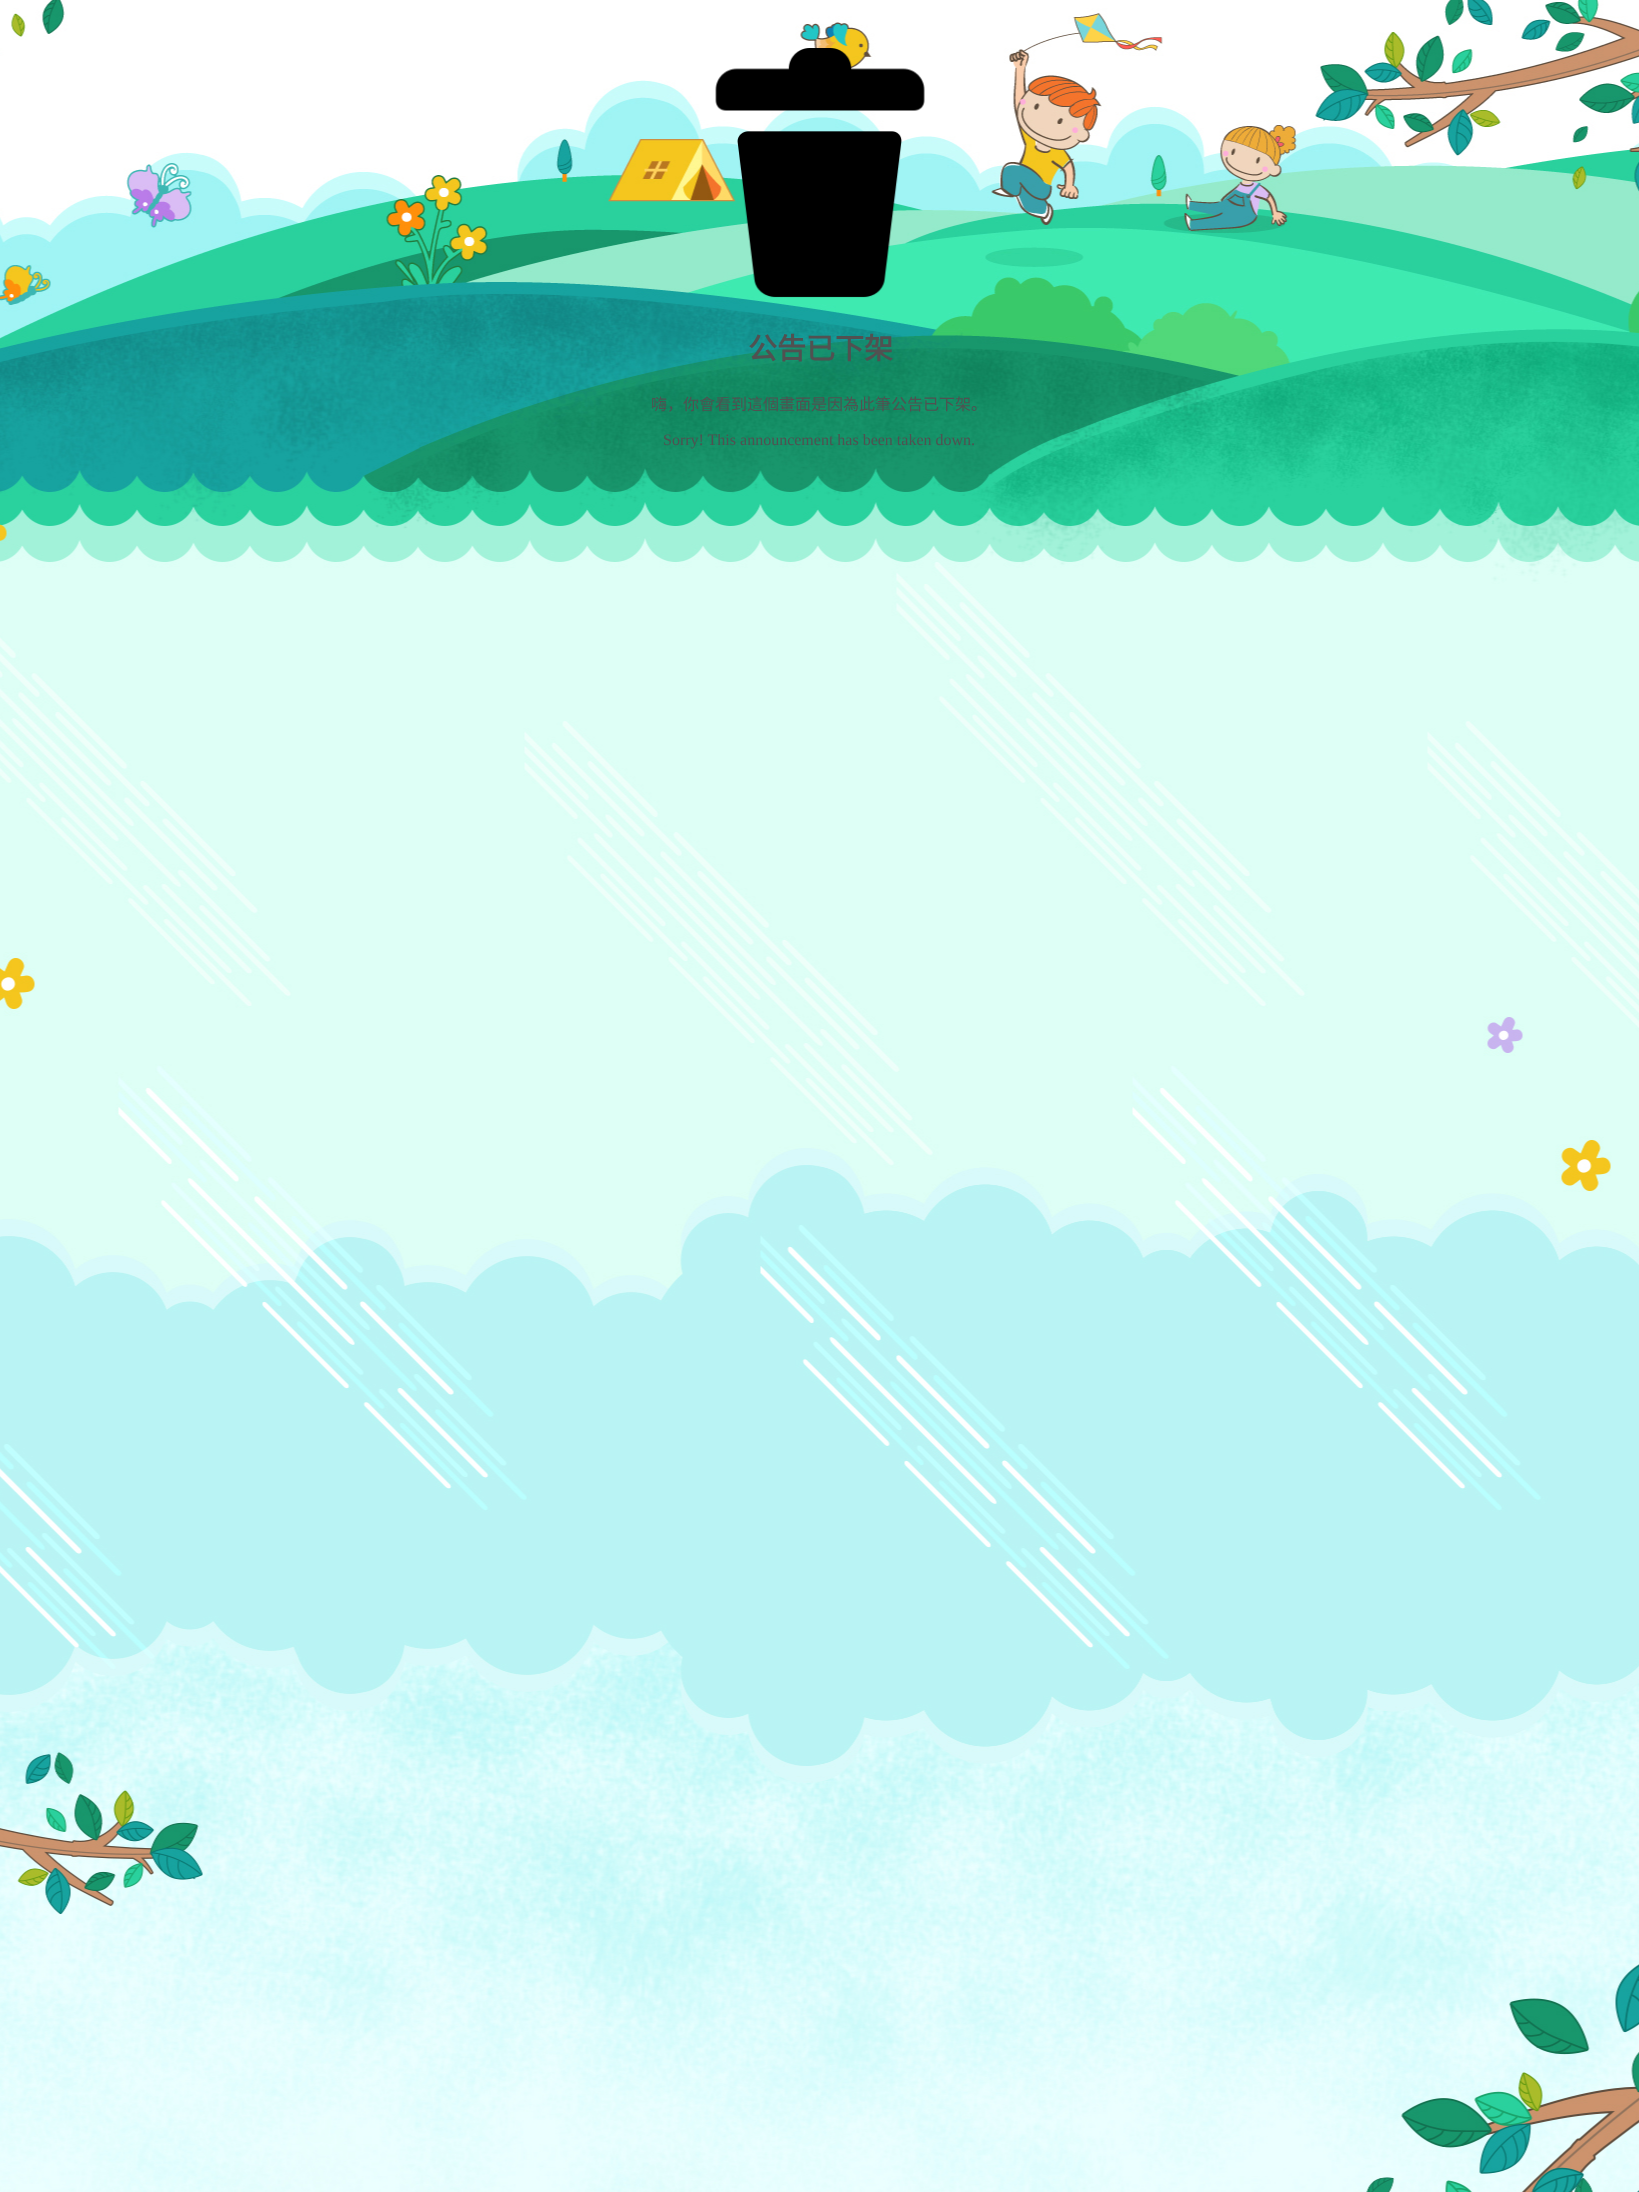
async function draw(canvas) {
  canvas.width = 1639;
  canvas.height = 2192;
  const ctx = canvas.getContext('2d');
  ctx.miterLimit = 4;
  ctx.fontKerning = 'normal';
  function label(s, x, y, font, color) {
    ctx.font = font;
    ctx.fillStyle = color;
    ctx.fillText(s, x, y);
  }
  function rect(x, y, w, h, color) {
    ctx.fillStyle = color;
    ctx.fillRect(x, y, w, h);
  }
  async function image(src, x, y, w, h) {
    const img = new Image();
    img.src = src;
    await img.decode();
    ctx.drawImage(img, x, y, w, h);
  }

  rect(0, 0, 1639, 2192, '#fff');
  await image('assets/img1.png', 0, 0, 1639, 2192);
  await image('assets/img2.png', 715, 48, 210, 250);
  label('公告已下架', 748, 359, 'bold 29px Noto Sans CJK SC', '#515151');
  label('嗨，你會看到這個畫面是因為此筆公告已下架。', 651, 410, '16px Noto Sans CJK SC', '#515151');
  label('Sorry! This announcement has been taken down.', 663, 445, '16px Liberation Serif', '#515151');
}

draw(document.querySelector('canvas'));
